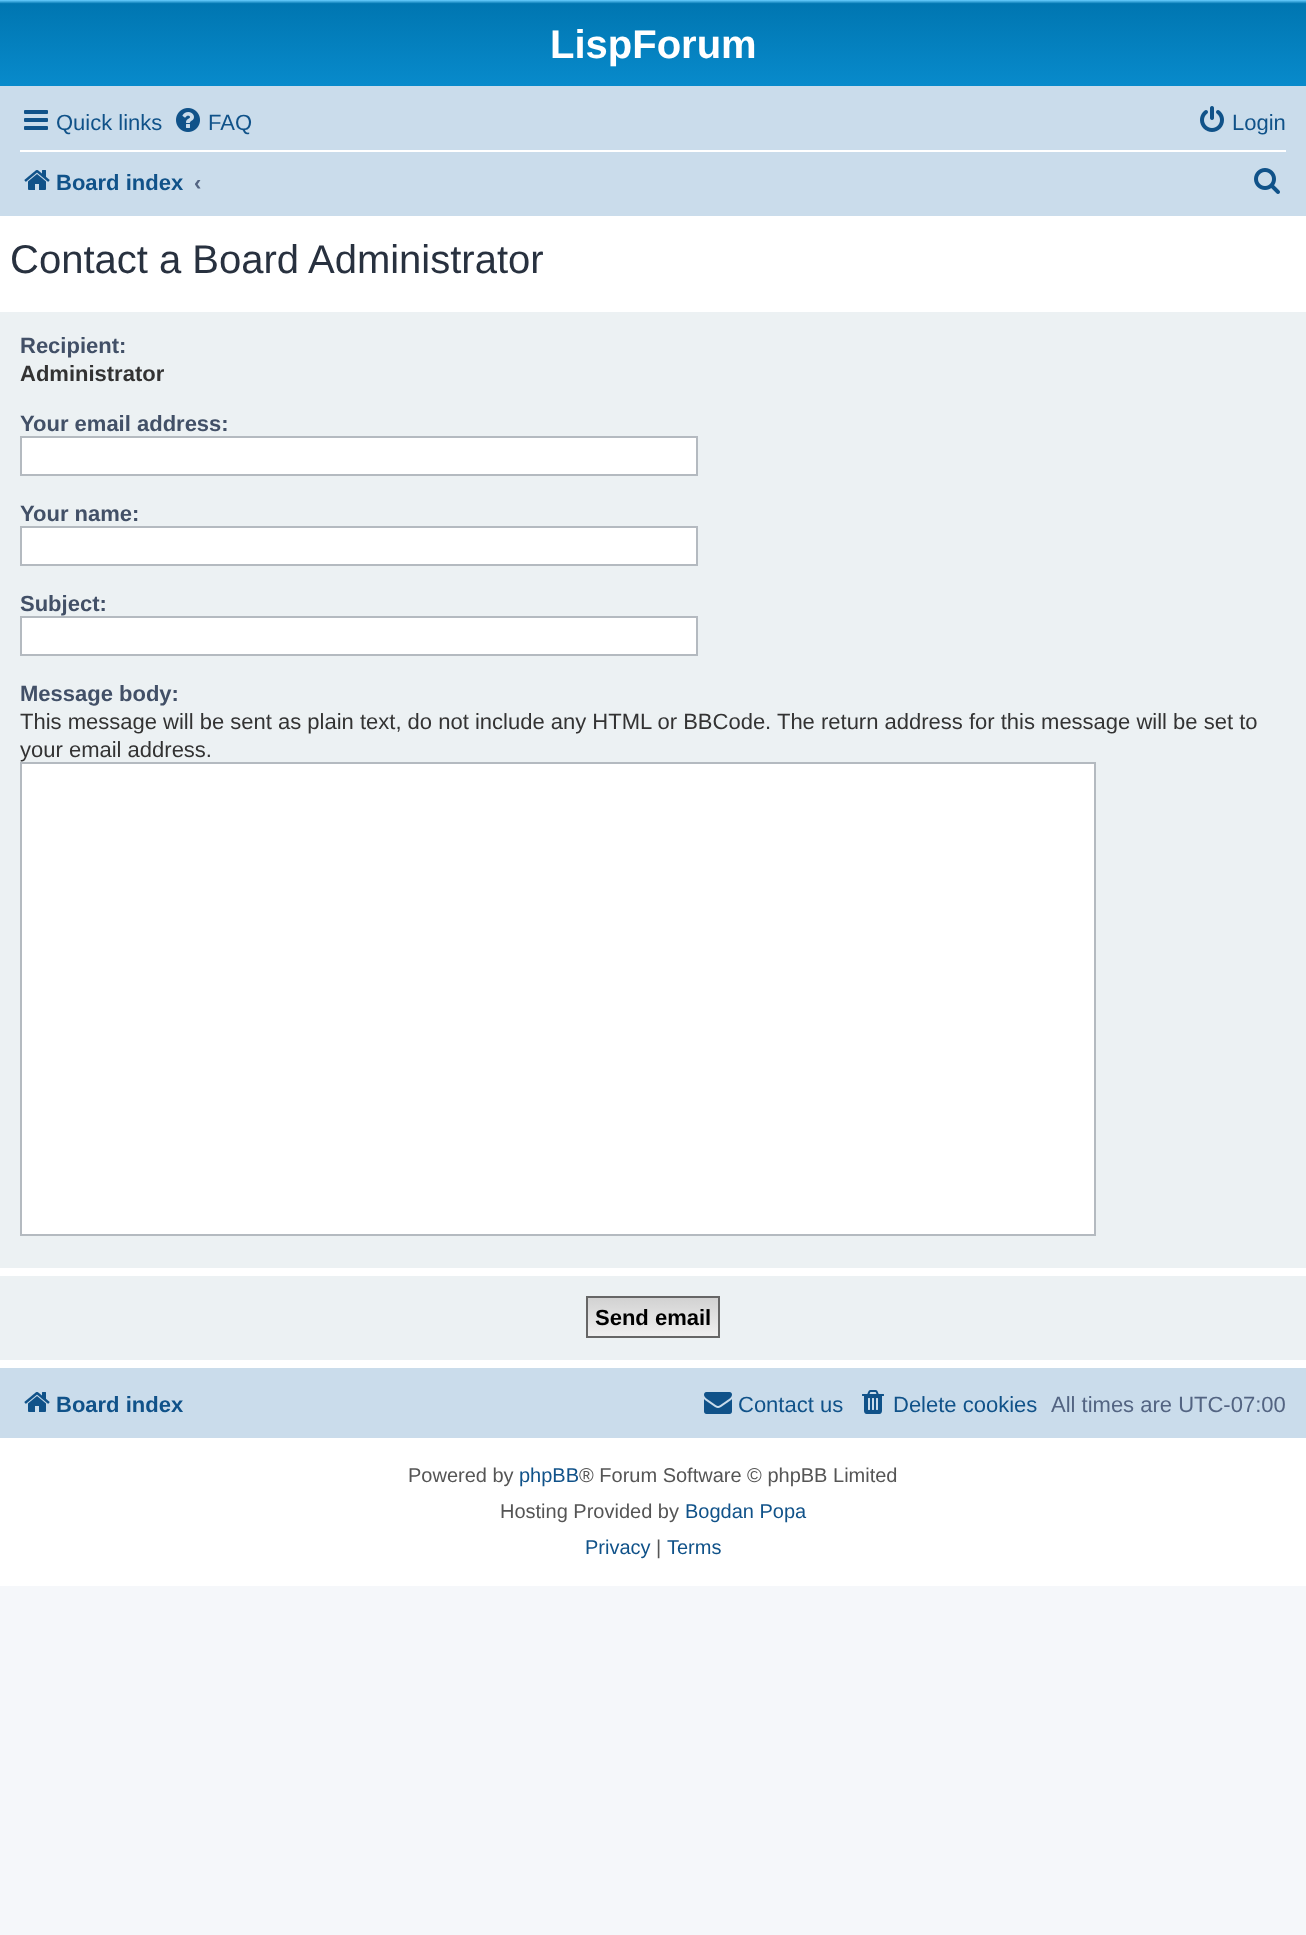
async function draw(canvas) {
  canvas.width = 1306;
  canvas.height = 1935;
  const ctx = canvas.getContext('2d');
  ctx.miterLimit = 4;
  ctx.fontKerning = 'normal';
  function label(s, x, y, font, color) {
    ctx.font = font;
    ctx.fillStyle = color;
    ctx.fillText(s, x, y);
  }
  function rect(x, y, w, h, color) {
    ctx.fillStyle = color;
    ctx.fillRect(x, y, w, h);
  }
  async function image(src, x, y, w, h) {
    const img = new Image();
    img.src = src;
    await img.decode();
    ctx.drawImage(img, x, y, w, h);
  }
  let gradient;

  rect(0, 0, 1306, 1935, '#f5f7fa');
  rect(0, 216, 1306, 1370, '#fff');
  gradient = ctx.createLinearGradient(653, 0, 653, 184);
  gradient.addColorStop(0, '#6aceff');
  gradient.addColorStop(0.02, '#0076b1');
  gradient.addColorStop(1, '#12a3eb');
  ctx.fillStyle = gradient;
  ctx.fillRect(0, 0, 1306, 86);
  label('LispForum', 550, 58, 'bold 40px Liberation Sans', '#fff');
  rect(0, 86, 1306, 130, '#cadceb');
  await image('assets/img1.png', 24, 110, 24, 20);
  label('Quick links', 56, 130, '22px Liberation Sans', '#105289');
  await image('assets/img2.png', 176, 108, 24, 24);
  label('FAQ', 208, 130, '22px Liberation Sans', '#105289');
  await image('assets/img3.png', 1200, 106, 24, 26);
  label('Login', 1232, 130, '22px Liberation Sans', '#105289');
  rect(20, 150, 1266, 2, '#fff');
  await image('assets/img4.png', 24, 170, 26, 20);
  label('Board index', 56, 190, 'bold 22px Liberation Sans', '#105289');
  label('‹', 194, 190, 'bold 22px Liberation Sans', '#536482');
  await image('assets/img5.png', 1254, 168, 26, 26);
  label('Contact a Board Administrator', 10, 273, '40px Liberation Sans', '#28313f');
  rect(0, 312, 1306, 956, '#ecf1f3');
  label('Recipient:', 20, 353, 'bold 22px Liberation Sans', '#425067');
  label('Administrator', 20, 381, 'bold 22px Liberation Sans', '#333');
  label('Your email address:', 20, 431, 'bold 22px Liberation Sans', '#425067');
  ctx.fillStyle = '#fff';
  ctx.beginPath();
  ctx.rect(21, 437, 676, 38);
  ctx.fill();
  ctx.strokeStyle = '#b4bac0';
  ctx.lineWidth = 2;
  ctx.stroke();
  label('Your name:', 20, 521, 'bold 22px Liberation Sans', '#425067');
  ctx.fillStyle = '#fff';
  ctx.beginPath();
  ctx.rect(21, 527, 676, 38);
  ctx.fill();
  ctx.stroke();
  label('Subject:', 20, 611, 'bold 22px Liberation Sans', '#425067');
  ctx.fillStyle = '#fff';
  ctx.beginPath();
  ctx.rect(21, 617, 676, 38);
  ctx.fill();
  ctx.stroke();
  label('Message body:', 20, 701, 'bold 22px Liberation Sans', '#425067');
  label('This message will be sent as plain text, do not include any HTML or BBCode. The return address for this message will be set to', 20, 729, '22px Liberation Sans', '#333');
  label('your email address.', 20, 757, '22px Liberation Sans', '#333');
  ctx.fillStyle = '#fff';
  ctx.beginPath();
  ctx.rect(21, 763, 1074, 472);
  ctx.fill();
  ctx.stroke();
  rect(0, 1276, 1306, 84, '#ecf1f3');
  gradient = ctx.createLinearGradient(653, 1298, 653, 1336);
  gradient.addColorStop(0, '#d2d2d2');
  gradient.addColorStop(1, '#efefef');
  ctx.fillStyle = gradient;
  ctx.fillRect(588, 1298, 130, 38);
  ctx.strokeStyle = '#666';
  ctx.strokeRect(587, 1297, 132, 40);
  label('Send email', 595, 1325, 'bold 22px Liberation Sans', '#000');
  rect(0, 1368, 1306, 70, '#cadceb');
  await image('assets/img4.png', 24, 1392, 26, 20);
  label('Board index', 56, 1412, 'bold 22px Liberation Sans', '#105289');
  await image('assets/img6.png', 704, 1392, 28, 22);
  label('Contact us', 738, 1412, '22px Liberation Sans', '#105289');
  await image('assets/img7.png', 862, 1390, 22, 24);
  label('Delete cookies', 893, 1412, '22px Liberation Sans', '#105289');
  label('All times are UTC-07:00', 1051, 1412, '22px Liberation Sans', '#536482');
  label('Powered by', 408, 1482, '20px Liberation Sans', '#555');
  label('phpBB', 519, 1482, '20px Liberation Sans', '#105289');
  label('® Forum Software © phpBB Limited', 579, 1482, '20px Liberation Sans', '#555');
  label('Hosting Provided by', 500, 1518, '20px Liberation Sans', '#555');
  label('Bogdan Popa', 685, 1518, '20px Liberation Sans', '#105289');
  label('Privacy', 585, 1554, '20px Liberation Sans', '#105289');
  label('|', 656, 1554, '20px Liberation Sans', '#555');
  label('Terms', 667, 1554, '20px Liberation Sans', '#105289');
}

draw(document.querySelector('canvas'));
